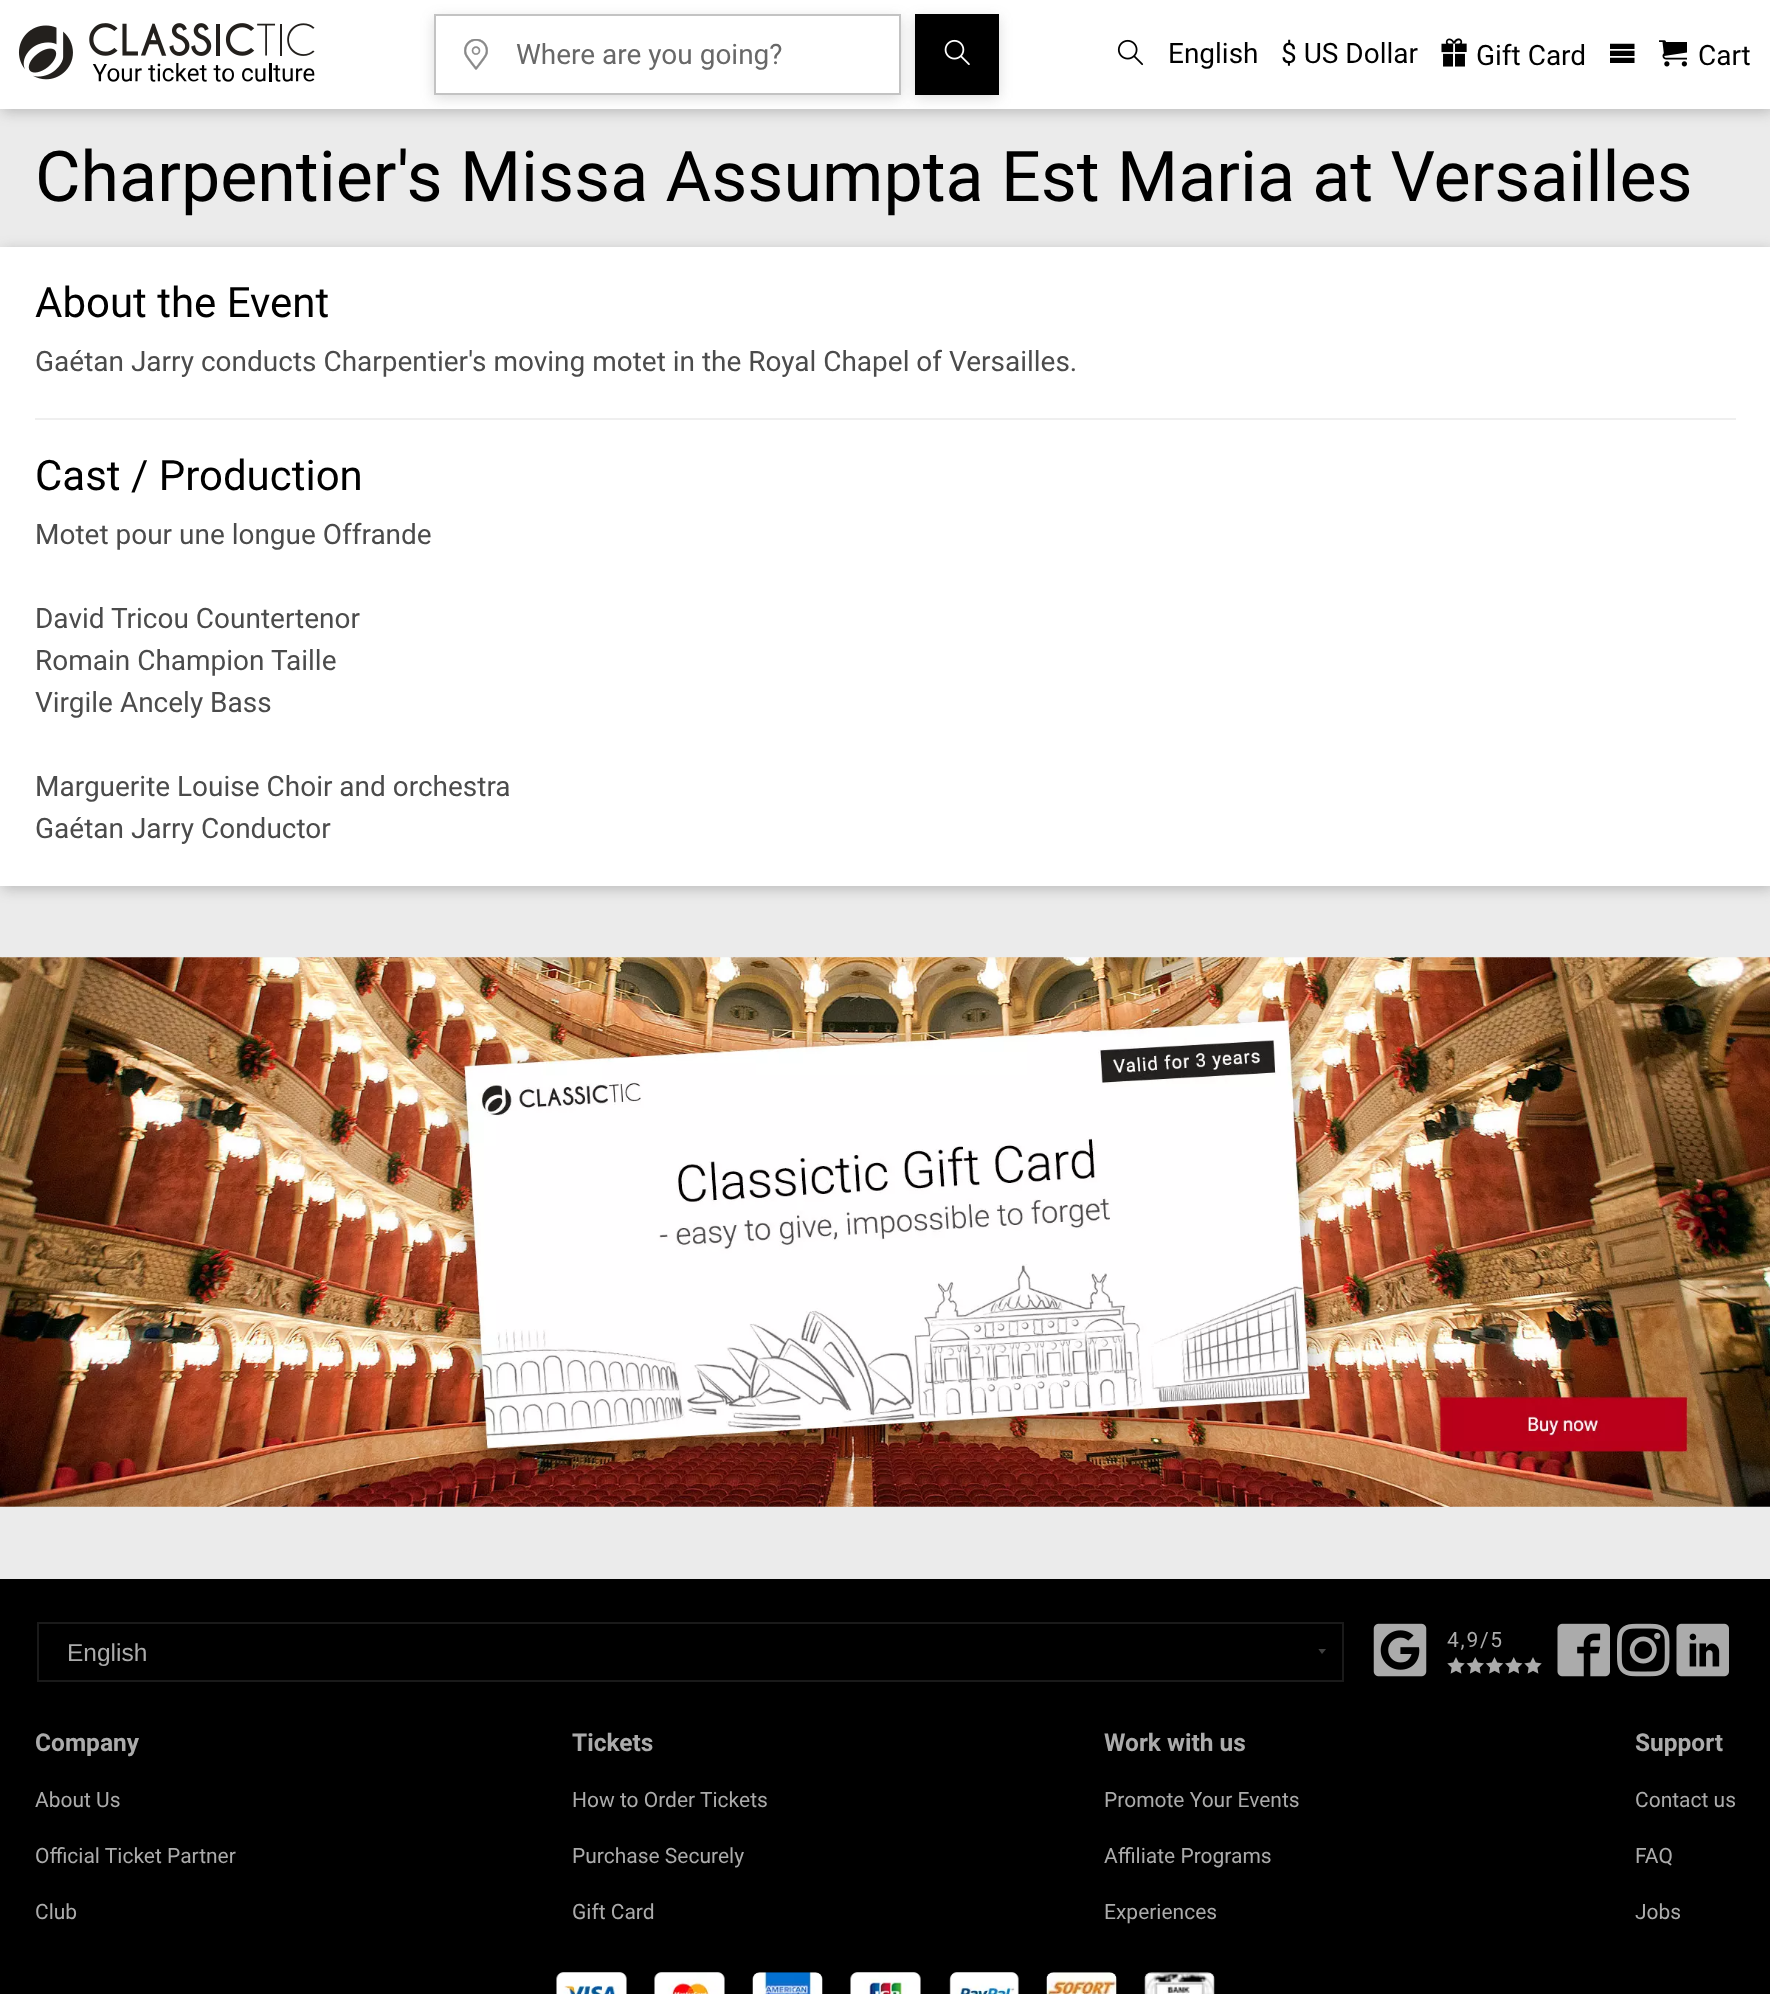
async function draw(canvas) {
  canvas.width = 1770;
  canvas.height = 1994;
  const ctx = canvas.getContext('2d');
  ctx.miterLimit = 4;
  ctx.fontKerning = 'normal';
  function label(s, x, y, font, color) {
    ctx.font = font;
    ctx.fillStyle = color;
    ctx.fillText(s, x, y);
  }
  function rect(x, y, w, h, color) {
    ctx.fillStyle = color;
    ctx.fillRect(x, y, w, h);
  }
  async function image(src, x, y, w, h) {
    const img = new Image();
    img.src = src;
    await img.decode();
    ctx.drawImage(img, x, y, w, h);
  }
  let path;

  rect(0, 0, 1770, 1994, '#ebebeb');
  ctx.fillStyle = '#4a4a4a4d';
  ctx.filter = 'blur(7px)';
  ctx.beginPath();
  ctx.rect(2, 4, 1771, 108);
  ctx.fill();
  ctx.filter = 'none';
  rect(0, 0, 1770, 109, '#fff');
  await image('assets/img1.png', 18, 23, 297, 59);
  ctx.fillStyle = '#4a4a4a33';
  ctx.filter = 'blur(7px)';
  ctx.beginPath();
  ctx.rect(915, 18, 84, 80);
  ctx.fill();
  ctx.filter = 'none';
  rect(915, 14, 84, 81, '#000');
  ctx.fillStyle = '#4a4a4a33';
  ctx.filter = 'blur(7px)';
  ctx.beginPath();
  ctx.rect(434, 18, 467, 80);
  ctx.fill();
  ctx.filter = 'none';
  rect(436, 16, 463, 77, '#fff');
  await image('assets/img2.png', 464, 39, 24, 31);
  ctx.strokeStyle = '#c3c3c3';
  ctx.lineWidth = 2;
  ctx.strokeRect(435, 15, 465, 79);
  label('Where are you going?', 516, 64, '28px Roboto', '#686868');
  await image('assets/img3.png', 944, 39, 26, 26);
  await image('assets/img4.png', 1117, 39, 27, 27);
  label('English', 1168, 63, '28px Roboto', '#000');
  label('$ US Dollar', 1281, 63, '28px Roboto', '#000');
  await image('assets/img5.png', 1441, 38, 26, 29);
  label('Gift Card', 1476, 65, '28px Roboto', '#000');
  await image('assets/img6.png', 1610, 43, 25, 20);
  await image('assets/img7.png', 1659, 40, 28, 27);
  label('Cart', 1698, 65, '28px Roboto', '#000');
  label('Charpentier\'s Missa Assumpta Est Maria at Versailles', 35, 201, '70px Roboto', '#000');
  ctx.fillStyle = '#4a4a4a4d';
  ctx.filter = 'blur(7px)';
  ctx.beginPath();
  ctx.rect(2, 250, 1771, 639);
  ctx.fill();
  ctx.filter = 'none';
  rect(0, 247, 1770, 639, '#fff');
  label('About the Event', 35, 317, '42px Roboto', '#000');
  label('Gaétan Jarry conducts Charpentier\'s moving motet in the Royal Chapel of Versailles.', 35, 371, '28px Roboto', '#4b4b4b');
  rect(35, 418, 1701, 2, '#efefef');
  label('Cast / Production', 35, 490, '42px Roboto', '#000');
  label('Motet pour une longue Offrande', 35, 544, '28px Roboto', '#4b4b4b');
  label('David Tricou Countertenor', 35, 628, '28px Roboto', '#4b4b4b');
  label('Romain Champion Taille', 35, 670, '28px Roboto', '#4b4b4b');
  label('Virgile Ancely Bass', 35, 712, '28px Roboto', '#4b4b4b');
  label('Marguerite Louise Choir and orchestra', 35, 796, '28px Roboto', '#4b4b4b');
  label('Gaétan Jarry Conductor', 35, 838, '28px Roboto', '#4b4b4b');
  await image('assets/img8.png', 0, 957, 1770, 550);
  rect(0, 1579, 1770, 415, '#000');
  await image('assets/img9.png', 1373, 1623, 54, 54);
  ctx.letterSpacing = '1.75px';
  label('4,9/5', 1447, 1647, '21px Roboto', '#ababab');
  await image('assets/img10.png', 1447, 1657, 18, 17);
  await image('assets/img11.png', 1466, 1657, 18, 17);
  await image('assets/img12.png', 1485, 1657, 19, 17);
  await image('assets/img13.png', 1505, 1657, 18, 17);
  await image('assets/img10.png', 1524, 1657, 18, 17);
  await image('assets/img14.png', 1557, 1623, 53, 54);
  await image('assets/img15.png', 1617, 1623, 53, 54);
  await image('assets/img16.png', 1676, 1623, 53, 54);
  ctx.save();
  ctx.beginPath();
  ctx.rect(1318, 1649, 10, 7);
  ctx.clip();
  ctx.fillStyle = '#414141';
  path = new Path2D('M1322 1654L1318 1648.5H1326.5Z');
  ctx.fill(path, 'evenodd');
  ctx.restore();
  ctx.strokeStyle = '#1a1a1a';
  ctx.strokeRect(38, 1623, 1305, 58);
  ctx.letterSpacing = '0px';
  label('English', 67, 1661, '24.5px Liberation Sans', '#ababab');
  label('Company', 35, 1751, 'bold 24.5px Roboto', '#ababab');
  label('About Us', 35, 1807, '21px Roboto', '#ababab');
  label('Official Ticket Partner', 35, 1863, '21px Roboto', '#ababab');
  label('Club', 35, 1919, '21px Roboto', '#ababab');
  label('Tickets', 572, 1751, 'bold 24.5px Roboto', '#ababab');
  label('How to Order Tickets', 572, 1807, '21px Roboto', '#ababab');
  label('Purchase Securely', 572, 1863, '21px Roboto', '#ababab');
  label('Gift Card', 572, 1919, '21px Roboto', '#ababab');
  label('Work with us', 1104, 1751, 'bold 24.5px Roboto', '#ababab');
  label('Promote Your Events', 1104, 1807, '21px Roboto', '#ababab');
  label('Affiliate Programs', 1104, 1863, '21px Roboto', '#ababab');
  label('Experiences', 1104, 1919, '21px Roboto', '#ababab');
  label('Support', 1635, 1751, 'bold 24.5px Roboto', '#ababab');
  label('Contact us', 1635, 1807, '21px Roboto', '#ababab');
  label('FAQ', 1635, 1863, '21px Roboto', '#ababab');
  label('Jobs', 1635, 1919, '21px Roboto', '#ababab');
  await image('assets/img17.png', 556, 1972, 71, 22);
  await image('assets/img18.png', 654, 1972, 71, 22);
  await image('assets/img19.png', 752, 1972, 71, 22);
  await image('assets/img20.png', 850, 1972, 71, 22);
  await image('assets/img21.png', 949, 1972, 70, 22);
  await image('assets/img22.png', 1046, 1972, 71, 22);
  await image('assets/img23.png', 1144, 1972, 71, 22);
}

draw(document.querySelector('canvas'));
